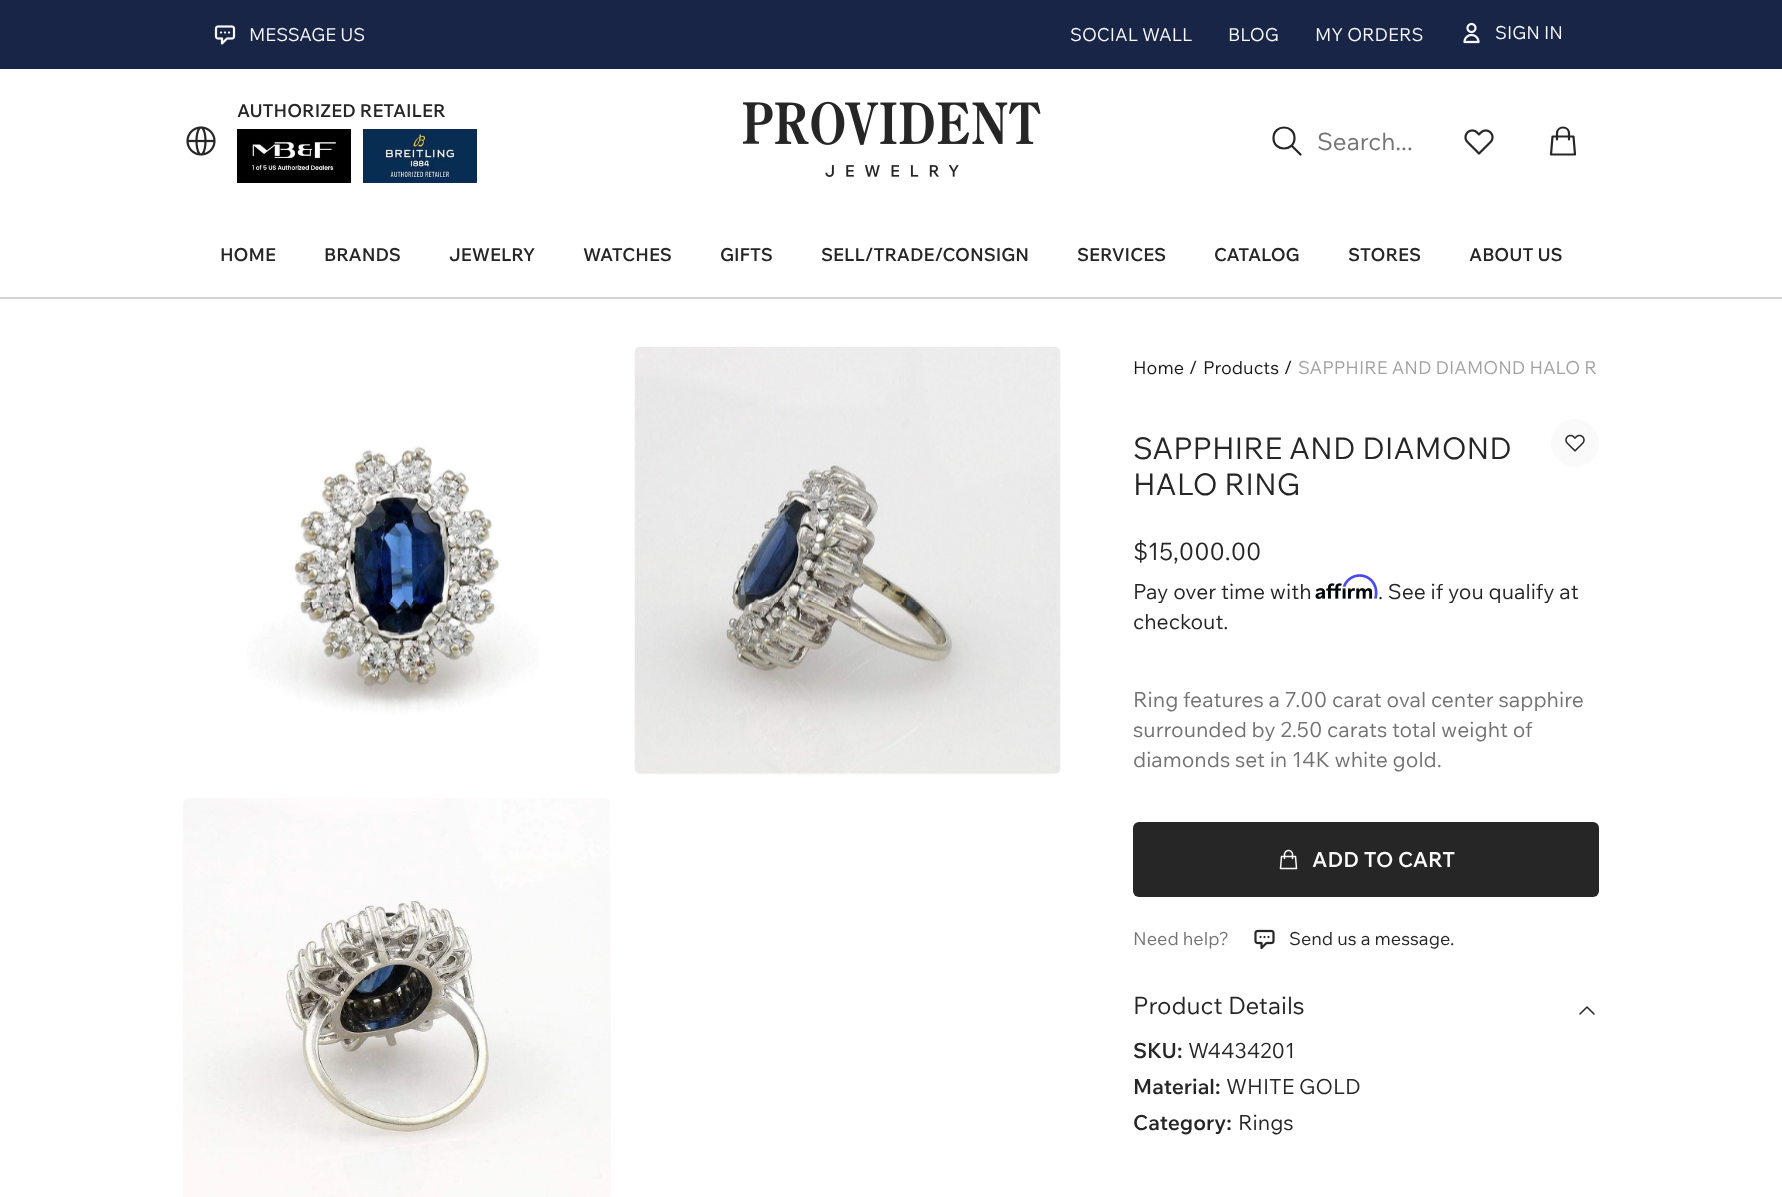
async function draw(canvas) {
  canvas.width = 1782;
  canvas.height = 1197;
  const ctx = canvas.getContext('2d');
  ctx.miterLimit = 4;
  ctx.fontKerning = 'normal';
  function label(s, x, y, font, color) {
    ctx.font = font;
    ctx.fillStyle = color;
    ctx.fillText(s, x, y);
  }
  function rect(x, y, w, h, color) {
    ctx.fillStyle = color;
    ctx.fillRect(x, y, w, h);
  }
  function roundedRect(x, y, w, h, r, color) {
    ctx.fillStyle = color;
    ctx.beginPath();
    ctx.roundRect(x, y, w, h, r);
    ctx.fill();
  }
  async function image(src, x, y, w, h) {
    const img = new Image();
    img.src = src;
    await img.decode();
    ctx.drawImage(img, x, y, w, h);
  }
  let path;

  rect(0, 0, 1782, 1197, '#fff');
  rect(0, 0, 1782, 69, '#182547');
  await image('assets/img1.png', 214, 25, 22, 20);
  label('MESSAGE US', 249, 41, '18px Wix Madefor Text', '#fafafa');
  label('SOCIAL WALL', 1070, 41, '18px Wix Madefor Text', '#fafafa');
  label('BLOG', 1228, 41, '18px Wix Madefor Text', '#fafafa');
  label('MY ORDERS', 1315, 41, '18px Wix Madefor Text', '#fafafa');
  await image('assets/img2.png', 1463, 22, 17, 22);
  label('SIGN IN', 1495, 39, '18px Wix Madefor Text', '#fafafa');
  label('AUTHORIZED RETAILER', 237, 117, '600 18px Wix Madefor Text', '#262626');
  await image('assets/img3.png', 237, 129, 114, 54);
  await image('assets/img4.png', 363, 129, 114, 54);
  await image('assets/img5.png', 186, 126, 30, 30);
  await image('assets/img6.png', 742, 101, 299, 76);
  path = new Path2D('M1300.5 154.5L1291.5 145.5M1294.5 138C1294.5 152 1273.5 152 1273.5 138C1273.5 124 1294.5 124 1294.5 138Z');
  ctx.strokeStyle = '#262626';
  ctx.lineWidth = 2.2;
  ctx.lineCap = 'round';
  ctx.lineJoin = 'round';
  ctx.stroke(path);
  label('Search...', 1317, 150, '24px Wix Madefor Text', '#737373');
  await image('assets/img7.png', 1464, 129, 30, 26);
  path = new Path2D('M1569 139.5V133.5C1569 130 1566.5 127.5 1563 127.5C1559.5 127.5 1557 130 1557 133.5V139.5M1552.5 136.5H1573.5L1575 154.5H1551Z');
  ctx.stroke(path);
  rect(0, 297, 1782, 2, '#d4d4d4');
  label('HOME', 220, 261, '600 18px Wix Madefor Text', '#262626');
  label('BRANDS', 324, 261, '600 18px Wix Madefor Text', '#262626');
  label('JEWELRY', 449, 261, '600 18px Wix Madefor Text', '#262626');
  label('WATCHES', 583, 261, '600 18px Wix Madefor Text', '#262626');
  label('GIFTS', 720, 261, '600 18px Wix Madefor Text', '#262626');
  label('SELL/TRADE/CONSIGN', 821, 261, '600 18px Wix Madefor Text', '#262626');
  label('SERVICES', 1077, 261, '600 18px Wix Madefor Text', '#262626');
  label('CATALOG', 1214, 261, '600 18px Wix Madefor Text', '#262626');
  label('STORES', 1348, 261, '600 18px Wix Madefor Text', '#262626');
  label('ABOUT US', 1469, 261, '600 18px Wix Madefor Text', '#262626');
  await image('assets/img8.png', 247, 446, 292, 269);
  await image('assets/img9.png', 634, 347, 427, 428);
  await image('assets/img10.png', 183, 798, 428, 399);
  label('Home', 1133, 374, '18px Wix Madefor Text', '#171717');
  label('/', 1189, 374, '18px Wix Madefor Text', '#171717');
  label('Products', 1203, 374, '18px Wix Madefor Text', '#171717');
  label('/', 1284, 374, '18px Wix Madefor Text', '#171717');
  label('SAPPHIRE AND DIAMOND HALO R', 1298, 374, '18px Wix Madefor Text', '#a2a2a2');
  label('SAPPHIRE AND DIAMOND', 1133, 459, '30px Wix Madefor Text', '#262626');
  label('HALO RING', 1133, 495, '30px Wix Madefor Text', '#262626');
  ctx.fillStyle = '#fafafa';
  ctx.beginPath();
  ctx.arc(1575, 443, 24, 0, 2 * Math.PI);
  ctx.fill();
  await image('assets/img11.png', 1565, 434, 20, 18);
  label('$15,000.00', 1133, 560, '24px Wix Madefor Text', '#262626');
  label('Pay over time with', 1133, 599, '21px Wix Madefor Text', '#262626');
  await image('assets/img13.png', 1315, 583, 58, 16);
  await image('assets/img12.png', 1342, 574, 36, 25);
  label('. See if you qualify at', 1378, 599, '21px Wix Madefor Text', '#262626');
  label('checkout.', 1133, 629, '21px Wix Madefor Text', '#262626');
  label('Ring features a 7.00 carat oval center sapphire', 1133, 707, '21px Wix Madefor Text', '#737373');
  label('surrounded by 2.50 carats total weight of', 1133, 737, '21px Wix Madefor Text', '#737373');
  label('diamonds set in 14K white gold.', 1133, 767, '21px Wix Madefor Text', '#737373');
  roundedRect(1133, 822, 466, 75, 6, '#262626');
  await image('assets/img14.png', 1279, 849, 19, 21);
  label('ADD TO CART', 1312, 867, '600 21px Wix Madefor Text', '#fafafa');
  label('Need help?', 1133, 945, '18px Wix Madefor Text', '#737373');
  await image('assets/img15.png', 1254, 929, 21, 21);
  label('Send us a message.', 1289, 945, '18px Wix Madefor Text', '#262626');
  label('Product Details', 1133, 1014, '24px Wix Madefor Text', '#262626');
  path = new Path2D('M1580 1014L1587 1007L1594 1014');
  ctx.lineWidth = 1.5;
  ctx.stroke(path);
  label('SKU:', 1133, 1058, '600 21px Wix Madefor Text', '#262626');
  label('W4434201', 1188, 1058, '21px Wix Madefor Text', '#262626');
  label('Material:', 1133, 1094, '600 21px Wix Madefor Text', '#262626');
  label('WHITE GOLD', 1226, 1094, '21px Wix Madefor Text', '#262626');
  label('Category:', 1133, 1130, '600 21px Wix Madefor Text', '#262626');
  label('Rings', 1238, 1130, '21px Wix Madefor Text', '#262626');
}

draw(document.querySelector('canvas'));
